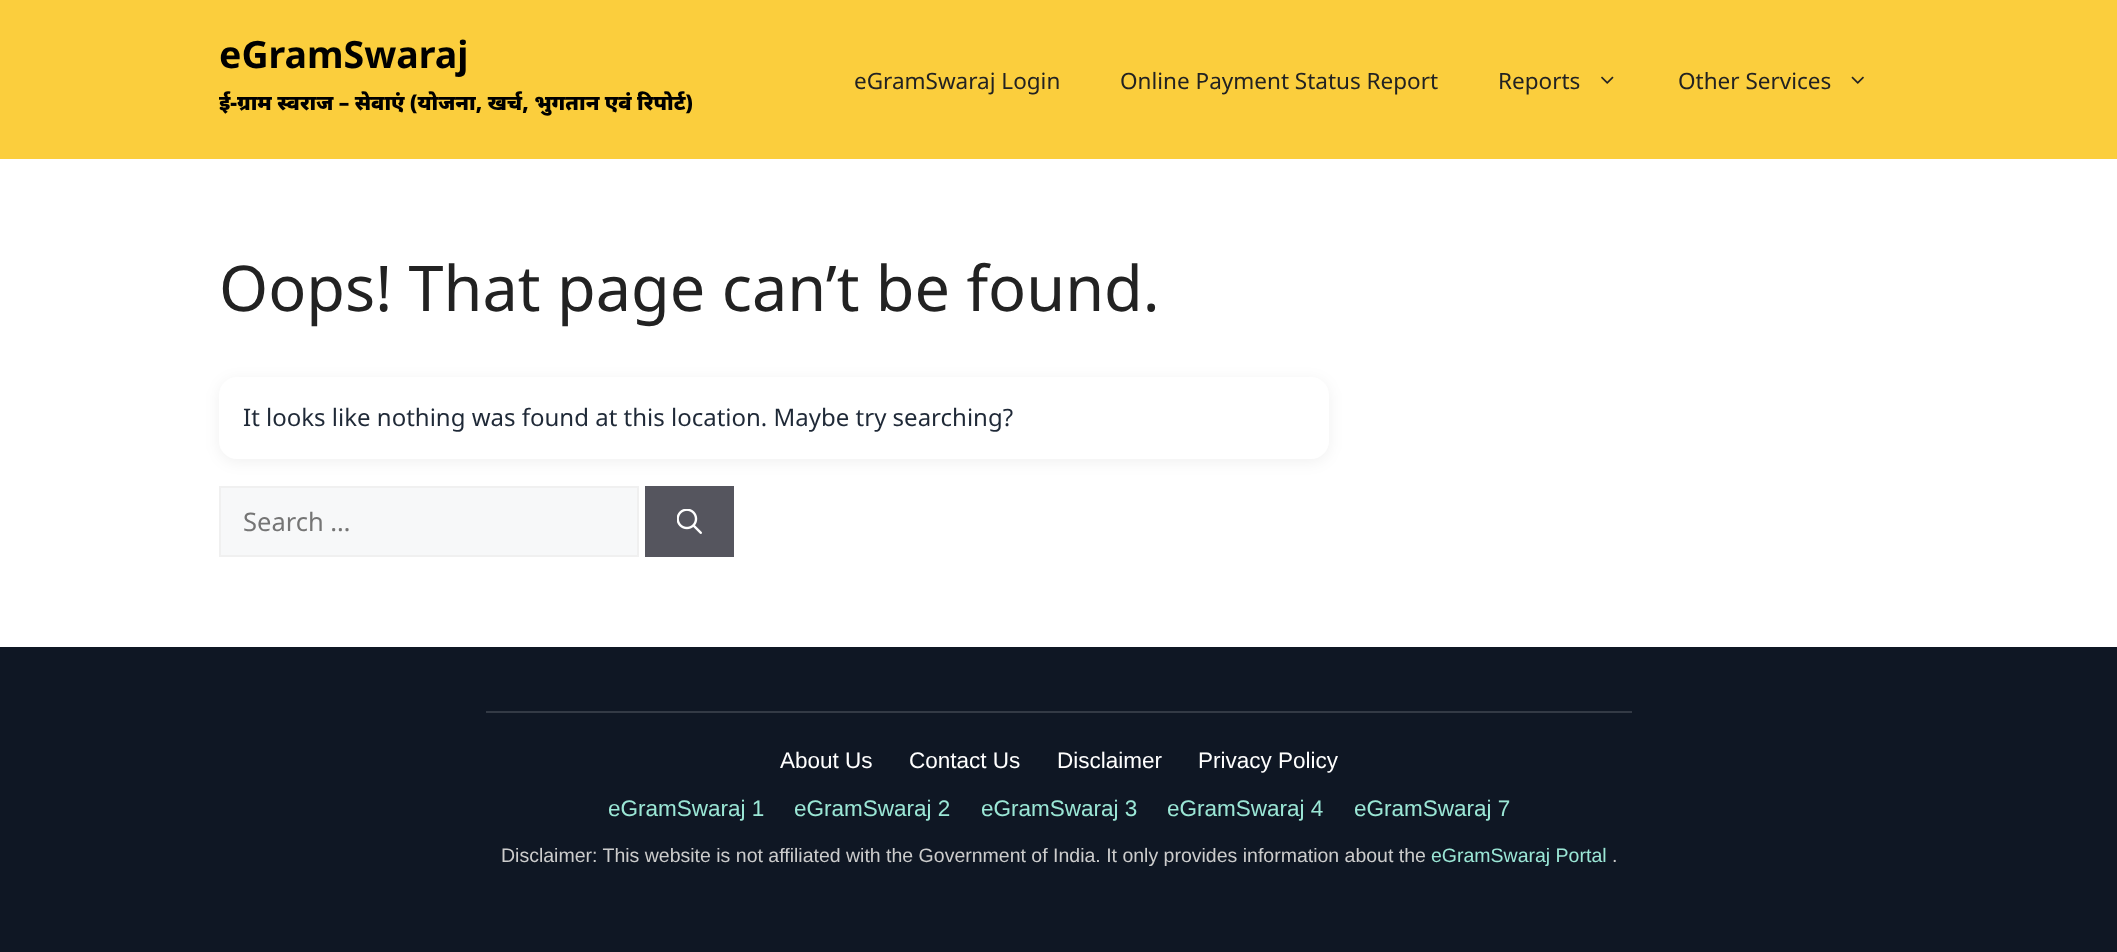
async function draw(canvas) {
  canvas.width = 2117;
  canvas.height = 952;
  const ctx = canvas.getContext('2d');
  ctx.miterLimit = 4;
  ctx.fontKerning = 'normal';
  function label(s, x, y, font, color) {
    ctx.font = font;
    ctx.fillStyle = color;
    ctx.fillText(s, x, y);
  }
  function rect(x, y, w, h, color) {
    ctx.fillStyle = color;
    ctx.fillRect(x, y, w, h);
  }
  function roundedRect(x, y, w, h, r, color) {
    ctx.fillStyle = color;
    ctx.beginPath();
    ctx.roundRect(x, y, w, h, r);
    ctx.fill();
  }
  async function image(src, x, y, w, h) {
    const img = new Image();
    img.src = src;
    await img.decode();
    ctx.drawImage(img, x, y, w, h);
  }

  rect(0, 0, 2117, 952, '#fff');
  rect(0, 0, 2117, 159, '#fbce3d');
  label('eGramSwaraj', 219, 68, 'bold 37.5px Noto Sans', '#000');
  label('ई-ग्राम स्वराज – सेवाएं (योजना, खर्च, भुगतान एवं रिपोर्ट)', 219, 110, '900 21px Noto Sans', '#000');
  label('eGramSwaraj Login', 854, 89, '22.5px Noto Sans', '#222');
  label('Online Payment Status Report', 1120, 89, '22.5px Noto Sans', '#222');
  label('Reports', 1498, 89, '22.5px Noto Sans', '#222');
  await image('assets/img1.png', 1601, 76, 13, 8);
  label('Other Services', 1678, 89, '22.5px Noto Sans', '#222');
  await image('assets/img2.png', 1851, 76, 13, 8);
  label('Oops! That page can’t be found.', 219, 311, '63px Noto Sans', '#222');
  ctx.fillStyle = '#0000000f';
  ctx.filter = 'blur(7.5px)';
  ctx.beginPath();
  ctx.roundRect(219, 380, 1110, 82, 18);
  ctx.fill();
  ctx.filter = 'none';
  roundedRect(219, 377, 1110, 82, 18, '#fff');
  label('It looks like nothing was found at this location. Maybe try searching?', 243, 426, '24px Noto Sans', '#1f2937');
  ctx.fillStyle = '#f7f8f9';
  ctx.beginPath();
  ctx.rect(220, 487, 418, 69);
  ctx.fill();
  ctx.strokeStyle = '#f0f0f0';
  ctx.lineWidth = 2;
  ctx.stroke();
  label('Search …', 243, 531, '25.5px Noto Sans', '#757575');
  rect(645, 486, 89, 71, '#55555e');
  await image('assets/img3.png', 677, 509, 25, 25);
  rect(0, 647, 2117, 305, '#0f1724');
  rect(486, 711, 1146, 2, '#333a45');
  label('About Us', 780, 768, '22.5px Liberation Sans', '#fff');
  label('Contact Us', 909, 768, '22.5px Liberation Sans', '#fff');
  label('Disclaimer', 1057, 768, '22.5px Liberation Sans', '#fff');
  label('Privacy Policy', 1198, 768, '22.5px Liberation Sans', '#fff');
  label('eGramSwaraj 1', 608, 816, '22.5px Liberation Sans', '#9be7d6');
  label('eGramSwaraj 2', 794, 816, '22.5px Liberation Sans', '#9be7d6');
  label('eGramSwaraj 3', 981, 816, '22.5px Liberation Sans', '#9be7d6');
  label('eGramSwaraj 4', 1167, 816, '22.5px Liberation Sans', '#9be7d6');
  label('eGramSwaraj 7', 1354, 816, '22.5px Liberation Sans', '#9be7d6');
  label('Disclaimer: This website is not affiliated with the Government of India. It only provides information about the', 501, 862, '19.5px Liberation Sans', '#ccc');
  label('eGramSwaraj Portal', 1431, 862, '19.5px Liberation Sans', '#9be7d6');
  label('.', 1612, 862, '19.5px Liberation Sans', '#ccc');
}

draw(document.querySelector('canvas'));
